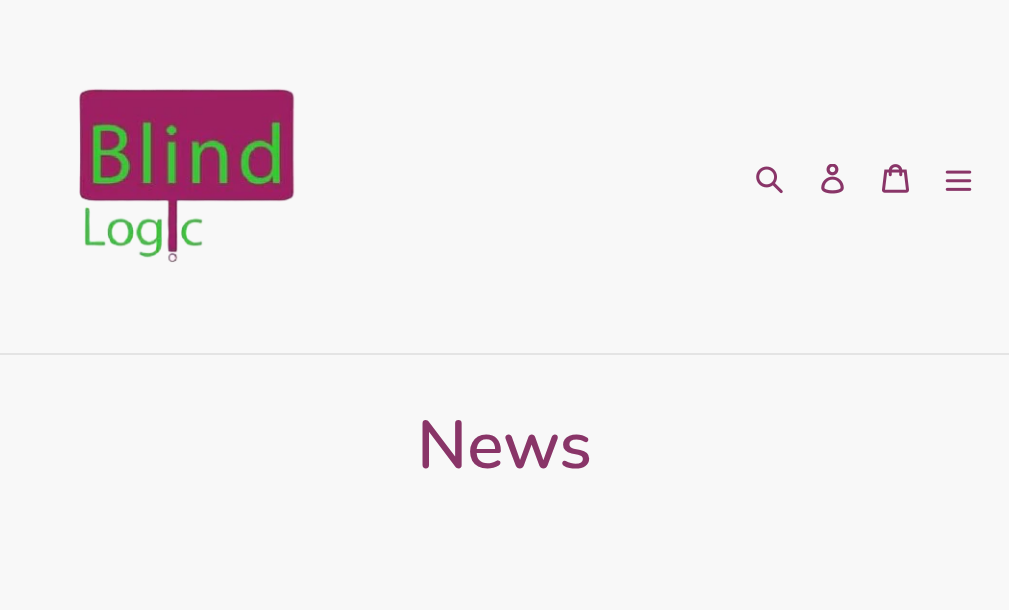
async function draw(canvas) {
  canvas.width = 1009;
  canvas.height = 610;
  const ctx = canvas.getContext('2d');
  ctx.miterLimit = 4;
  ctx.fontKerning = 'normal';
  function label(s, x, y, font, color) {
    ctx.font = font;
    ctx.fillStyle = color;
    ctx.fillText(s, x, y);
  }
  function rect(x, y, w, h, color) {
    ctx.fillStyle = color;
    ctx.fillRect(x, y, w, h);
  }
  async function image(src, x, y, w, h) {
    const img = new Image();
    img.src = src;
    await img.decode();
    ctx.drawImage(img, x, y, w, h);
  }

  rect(0, 0, 1009, 610, '#f8f8f8');
  rect(0, 353, 1009, 2, '#e4e4e4');
  await image('assets/img1.png', 79, 88, 216, 175);
  await image('assets/img2.png', 756, 166, 27, 28);
  await image('assets/img3.png', 821, 164, 23, 30);
  await image('assets/img4.png', 882, 164, 27, 29);
  await image('assets/img5.png', 945, 170, 27, 21);
  label('News', 417, 468, '600 67.5px Nunito', '#893568');
}

draw(document.querySelector('canvas'));
